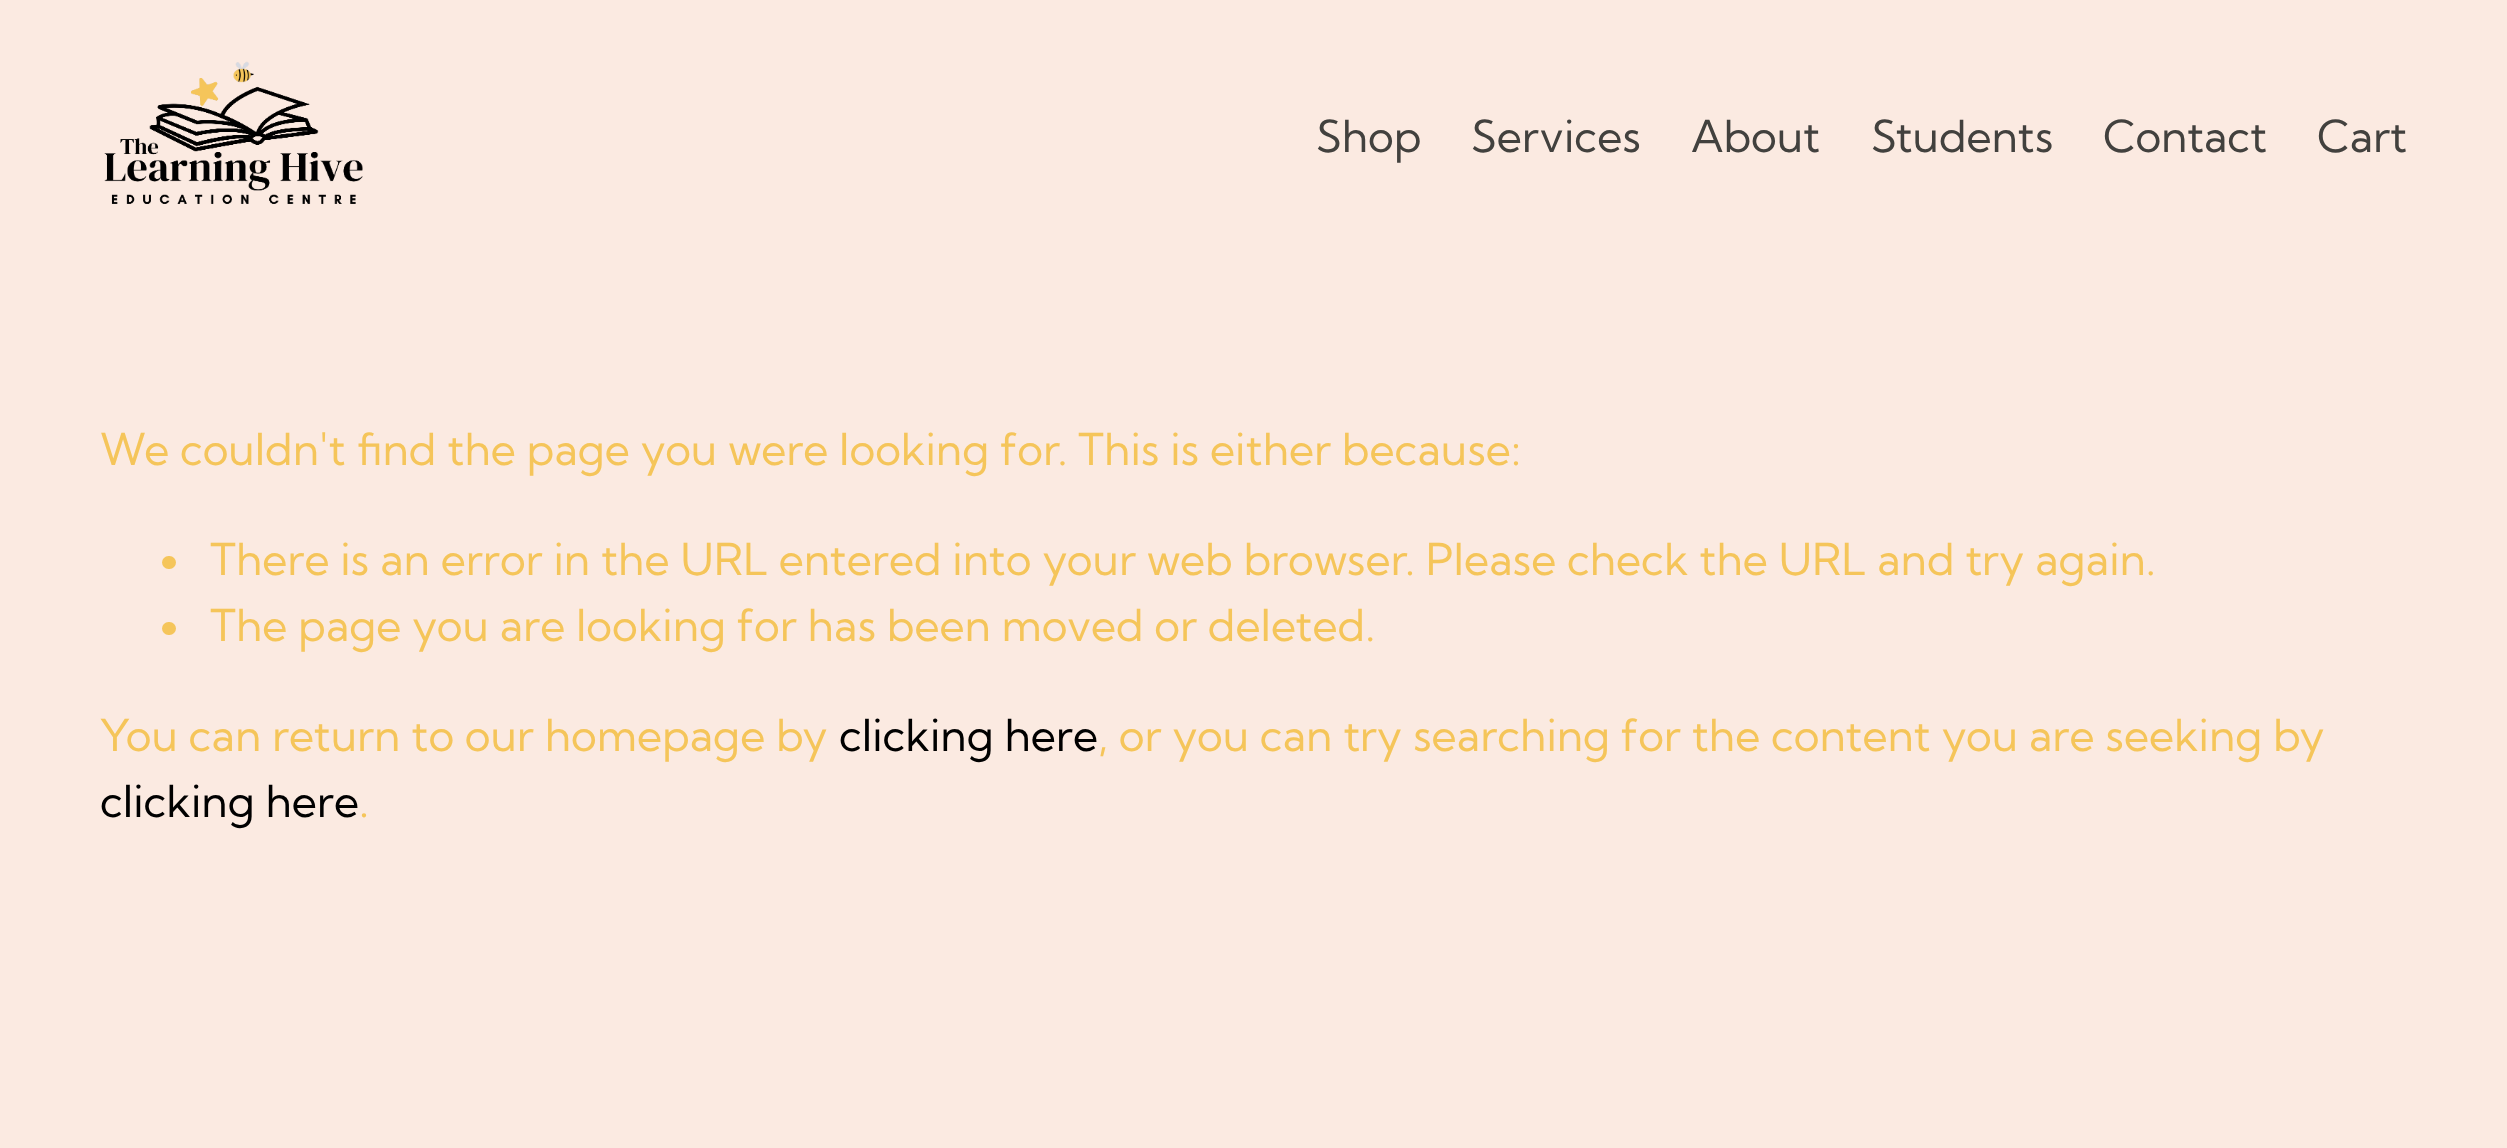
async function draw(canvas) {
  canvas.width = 2507;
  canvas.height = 1148;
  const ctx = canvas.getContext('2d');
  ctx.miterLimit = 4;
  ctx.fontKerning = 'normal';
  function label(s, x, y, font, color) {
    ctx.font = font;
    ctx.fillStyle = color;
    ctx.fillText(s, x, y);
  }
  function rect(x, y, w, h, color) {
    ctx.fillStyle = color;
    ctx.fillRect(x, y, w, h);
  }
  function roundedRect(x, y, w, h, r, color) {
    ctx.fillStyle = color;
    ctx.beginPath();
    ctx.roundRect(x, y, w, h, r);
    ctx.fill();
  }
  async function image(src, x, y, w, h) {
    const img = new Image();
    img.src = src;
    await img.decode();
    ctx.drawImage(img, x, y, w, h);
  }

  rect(0, 0, 2507, 1148, '#fbeae1');
  await image('assets/img1.png', 104, 61, 259, 143);
  label('Shop', 1316, 152, '44px Kumbh Sans', '#42413e');
  label('Services', 1471, 152, '44px Kumbh Sans', '#42413e');
  label('About', 1691, 152, '44px Kumbh Sans', '#42413e');
  label('Students', 1871, 152, '44px Kumbh Sans', '#42413e');
  label('Contact', 2103, 152, '44px Kumbh Sans', '#42413e');
  label('Cart', 2317, 152, '44px Kumbh Sans', '#42413e');
  label('We couldn\'t find the page you were looking for. This is either because:', 100, 465, '44px Kumbh Sans', '#f5c55a');
  roundedRect(162, 556, 14, 13, 6.5, '#f5c55a');
  label('There is an error in the URL entered into your web browser. Please check the URL and try again.', 210, 575, '44px Kumbh Sans', '#f5c55a');
  roundedRect(162, 622, 14, 13, 6.5, '#f5c55a');
  label('The page you are looking for has been moved or deleted.', 210, 641, '44px Kumbh Sans', '#f5c55a');
  label('You can return to our homepage by', 100, 751, '44px Kumbh Sans', '#f5c55a');
  label('clicking here', 839, 751, '44px Kumbh Sans', '#000');
  label(', or you can try searching for the content you are seeking by', 1098, 751, '44px Kumbh Sans', '#f5c55a');
  label('clicking here', 100, 817, '44px Kumbh Sans', '#000');
  label('.', 359, 817, '44px Kumbh Sans', '#f5c55a');
}

draw(document.querySelector('canvas'));
